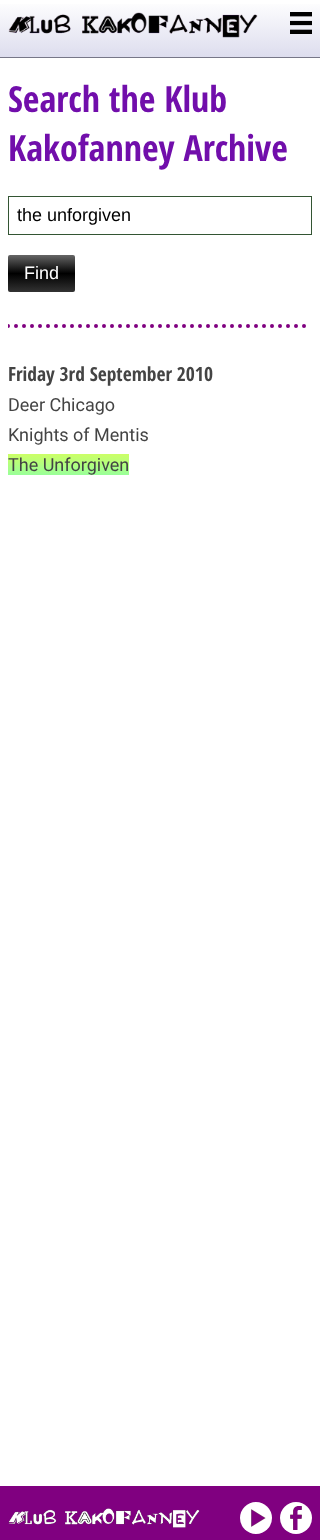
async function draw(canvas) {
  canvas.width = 320;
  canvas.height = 1540;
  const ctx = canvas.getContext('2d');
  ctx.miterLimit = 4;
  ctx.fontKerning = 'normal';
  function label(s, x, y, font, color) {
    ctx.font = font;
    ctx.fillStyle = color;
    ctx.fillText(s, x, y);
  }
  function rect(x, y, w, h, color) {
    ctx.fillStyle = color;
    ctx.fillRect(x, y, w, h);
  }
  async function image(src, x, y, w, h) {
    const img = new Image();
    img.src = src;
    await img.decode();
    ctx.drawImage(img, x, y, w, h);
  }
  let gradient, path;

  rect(0, 0, 320, 1540, '#fff');
  gradient = ctx.createLinearGradient(160, 0, 160, 57);
  gradient.addColorStop(0, '#fff');
  gradient.addColorStop(1, '#dde');
  ctx.fillStyle = gradient;
  ctx.fillRect(0, 4, 320, 53);
  rect(0, 57, 320, 1, '#778');
  await image('assets/img1.png', 8, 12, 250, 26);
  await image('assets/img2.png', 290, 12, 22, 22);
  label('Search the Klub', 8, 112, 'bold 36px Open Sans Condensed', '#710eab');
  label('Kakofanney Archive', 8, 161, 'bold 36px Open Sans Condensed', '#710eab');
  ctx.strokeStyle = '#353';
  ctx.strokeRect(8.5, 196.5, 303, 38);
  label('the unforgiven', 17, 221, '18px Liberation Sans', '#000');
  gradient = ctx.createLinearGradient(42, 255, 42, 292);
  gradient.addColorStop(0, '#666');
  gradient.addColorStop(0.5, '#000');
  gradient.addColorStop(1, '#333');
  ctx.fillStyle = gradient;
  ctx.beginPath();
  ctx.roundRect(8, 255, 67, 37, 2);
  ctx.fill();
  label('Find', 24, 279, '18px Liberation Sans', '#fff');
  ctx.save();
  ctx.beginPath();
  ctx.rect(8, 74, 304, 456);
  ctx.clip();
  path = new Path2D('M8 326H312');
  ctx.strokeStyle = '#800080';
  ctx.lineWidth = 4;
  ctx.lineCap = 'round';
  ctx.setLineDash([0, 8]);
  ctx.stroke(path);
  ctx.restore();
  label('Friday 3rd September 2010', 8, 381, 'bold 19.5px Open Sans Condensed', '#444');
  label('Deer Chicago', 8, 411, '18px Roboto', '#444');
  label('Knights of Mentis', 8, 441, '18px Roboto', '#444');
  gradient = ctx.createLinearGradient(69, 454, 69, 475);
  gradient.addColorStop(0, '#cf6');
  gradient.addColorStop(1, '#9f9');
  ctx.fillStyle = gradient;
  ctx.fillRect(8, 454, 121, 21);
  label('The Unforgiven', 8, 471, '18px Roboto', '#444');
  rect(0, 1486, 320, 54, '#800080');
  await image('assets/img3.png', 8, 1508, 192, 20);
  await image('assets/img4.png', 240, 1502, 32, 32);
  await image('assets/img5.png', 280, 1502, 32, 32);
}

draw(document.querySelector('canvas'));
